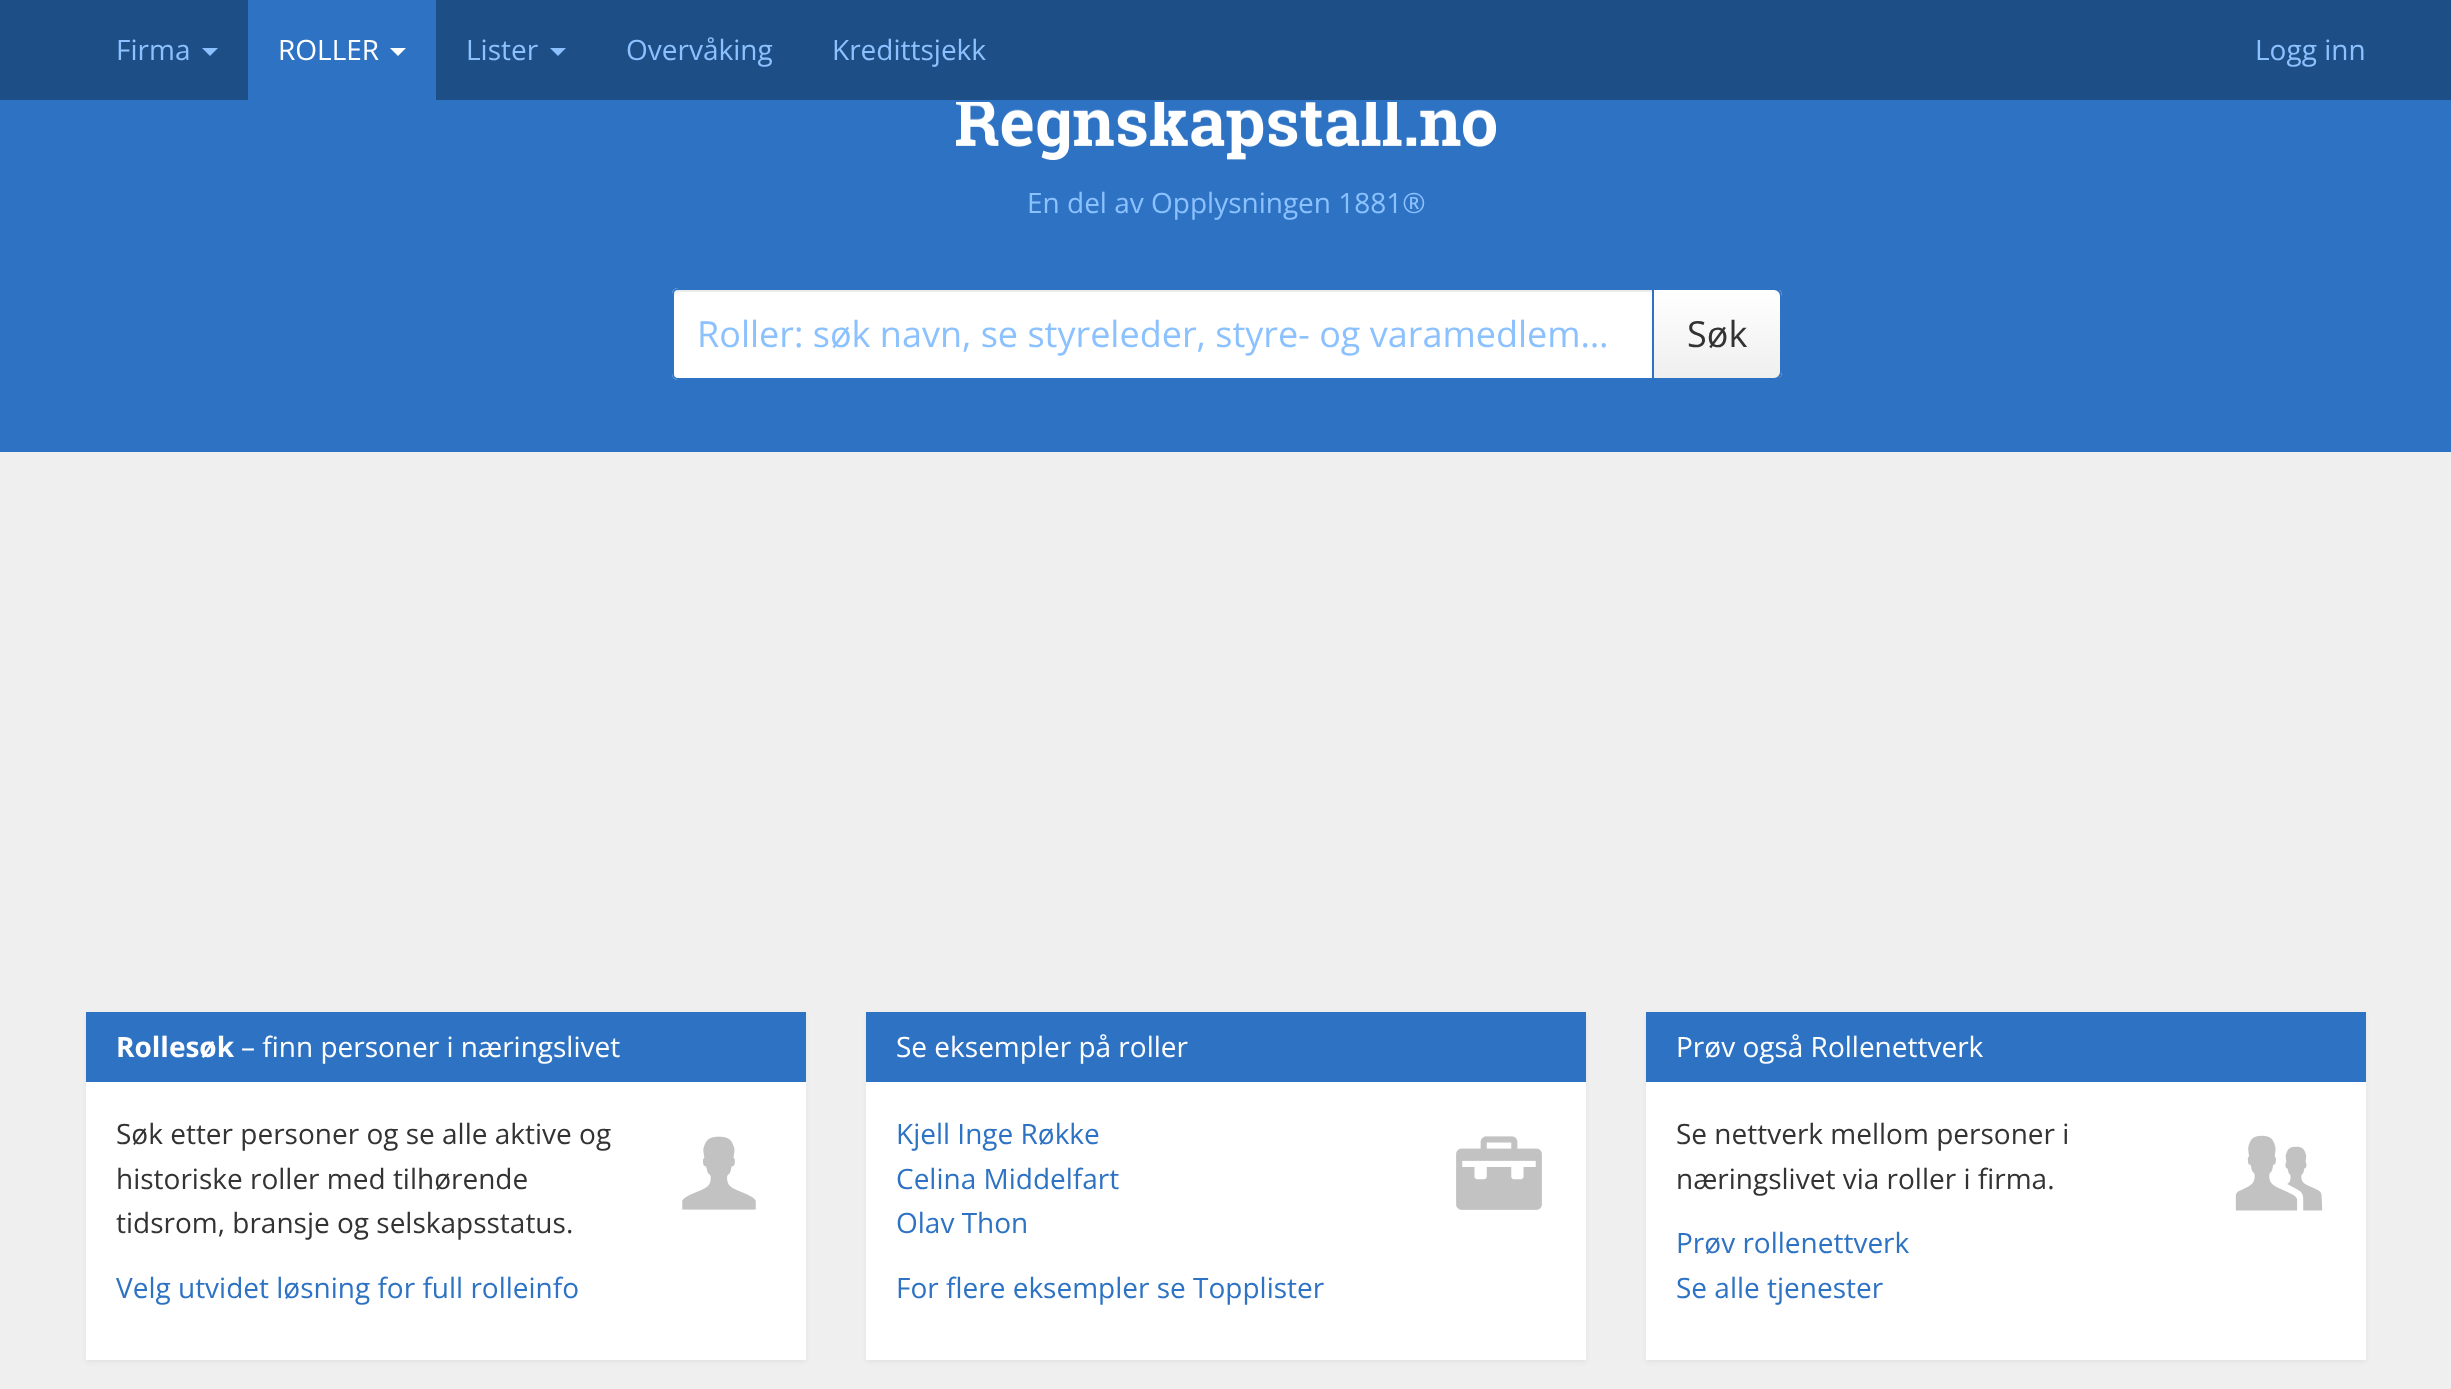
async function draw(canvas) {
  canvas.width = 2451;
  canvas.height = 1389;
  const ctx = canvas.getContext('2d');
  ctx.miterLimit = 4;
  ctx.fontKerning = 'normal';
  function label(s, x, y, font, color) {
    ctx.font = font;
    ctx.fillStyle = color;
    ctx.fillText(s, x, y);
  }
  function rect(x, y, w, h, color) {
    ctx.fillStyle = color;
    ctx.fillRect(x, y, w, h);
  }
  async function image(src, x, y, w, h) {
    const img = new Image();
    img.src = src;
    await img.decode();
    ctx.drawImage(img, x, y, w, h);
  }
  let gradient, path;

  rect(0, 0, 2451, 1389, '#efefef');
  rect(0, 0, 2451, 100, '#1e4e86');
  label('Firma', 116, 60, '28px Open Sans', '#8cc1ff');
  path = new Path2D('M202 48H218L210 56Z');
  ctx.fill(path);
  rect(248, 0, 188, 100, '#2e73c3');
  label('ROLLER', 278, 60, '28px Open Sans', '#fff');
  path = new Path2D('M390 48H406L398 56Z');
  ctx.fill(path);
  label('Lister', 466, 60, '28px Open Sans', '#8cc1ff');
  path = new Path2D('M550 48H566L558 56Z');
  ctx.fill(path);
  label('Overvåking', 626, 60, '28px Open Sans', '#8cc1ff');
  label('Kredittsjekk', 832, 60, '28px Open Sans', '#8cc1ff');
  label('Logg inn', 2255, 60, '28px Open Sans', '#8cc1ff');
  rect(0, 100, 2451, 352, '#2e73c3');
  await image('assets/img1.png', 956, 102, 540, 58);
  label('En del av Opplysningen 1881®', 1027, 213, '28px Open Sans', '#8cc1ff');
  ctx.fillStyle = '#fff';
  ctx.beginPath();
  ctx.roundRect(672, 288, 982, 92, [6, 0, 0, 6]);
  ctx.fill();
  ctx.fillStyle = '#ececec';
  path = new Path2D('M678 292H1652V290H678C676 290 674 292 674 294V296C674 294 676 292 678 292Z');
  ctx.fill(path);
  ctx.beginPath();
  ctx.roundRect(673, 289, 980, 90, [5, 0, 0, 5]);
  ctx.strokeStyle = '#2e73c3';
  ctx.lineWidth = 2;
  ctx.stroke();
  label('Roller: søk navn, se styreleder, styre- og varamedlem…', 697, 347, '36px Open Sans', '#8cc1ff');
  ctx.save();
  ctx.beginPath();
  ctx.roundRect(1652, 288, 130, 92, [0, 8, 8, 0]);
  ctx.clip();
  gradient = ctx.createLinearGradient(1717, 290, 1717, 378);
  gradient.addColorStop(0, '#fff');
  gradient.addColorStop(1, '#efefef');
  ctx.fillStyle = gradient;
  ctx.fillRect(1654, 290, 128, 88);
  ctx.restore();
  ctx.beginPath();
  ctx.roundRect(1653, 289, 128, 90, [0, 7, 7, 0]);
  ctx.stroke();
  label('Søk', 1687, 347, '36px Open Sans', '#333');
  ctx.fillStyle = '#0000000d';
  ctx.filter = 'blur(2px)';
  ctx.beginPath();
  ctx.rect(86, 1014, 720, 348);
  ctx.fill();
  ctx.filter = 'none';
  rect(86, 1082, 720, 278, '#fff');
  rect(86, 1012, 720, 70, '#2e73c3');
  label('Rollesøk', 116, 1057, 'bold 28px Open Sans', '#fff');
  label('– finn personer i næringslivet', 241, 1057, '28px Open Sans', '#fff');
  label('Søk etter personer og se alle aktive og', 116, 1144, '28px Open Sans', '#333');
  label('historiske roller med tilhørende', 116, 1189, '28px Open Sans', '#333');
  label('tidsrom, bransje og selskapsstatus.', 116, 1233, '28px Open Sans', '#333');
  label('Velg utvidet løsning for full rolleinfo', 116, 1298, '28px Open Sans', '#2e73c3');
  await image('assets/img2.png', 682, 1136, 74, 74);
  ctx.fillStyle = '#0000000d';
  ctx.filter = 'blur(2px)';
  ctx.beginPath();
  ctx.rect(866, 1014, 720, 348);
  ctx.fill();
  ctx.filter = 'none';
  rect(866, 1082, 720, 278, '#fff');
  rect(866, 1012, 720, 70, '#2e73c3');
  label('Se eksempler på roller', 896, 1057, '28px Open Sans', '#fff');
  label('Kjell Inge Røkke', 896, 1144, '28px Open Sans', '#2e73c3');
  label('Celina Middelfart', 896, 1189, '28px Open Sans', '#2e73c3');
  label('Olav Thon', 896, 1233, '28px Open Sans', '#2e73c3');
  label('For flere eksempler se Topplister', 896, 1298, '28px Open Sans', '#2e73c3');
  await image('assets/img3.png', 1456, 1136, 86, 74);
  ctx.fillStyle = '#0000000d';
  ctx.filter = 'blur(2px)';
  ctx.beginPath();
  ctx.rect(1646, 1014, 720, 348);
  ctx.fill();
  ctx.filter = 'none';
  rect(1646, 1082, 720, 278, '#fff');
  rect(1646, 1012, 720, 70, '#2e73c3');
  label('Prøv også Rollenettverk', 1676, 1057, '28px Open Sans', '#fff');
  label('Se nettverk mellom personer i', 1676, 1144, '28px Open Sans', '#333');
  label('næringslivet via roller i firma.', 1676, 1189, '28px Open Sans', '#333');
  label('Prøv rollenettverk', 1676, 1253, '28px Open Sans', '#2e73c3');
  label('Se alle tjenester', 1676, 1298, '28px Open Sans', '#2e73c3');
  await image('assets/img4.png', 2235, 1135, 88, 76);
}

draw(document.querySelector('canvas'));
